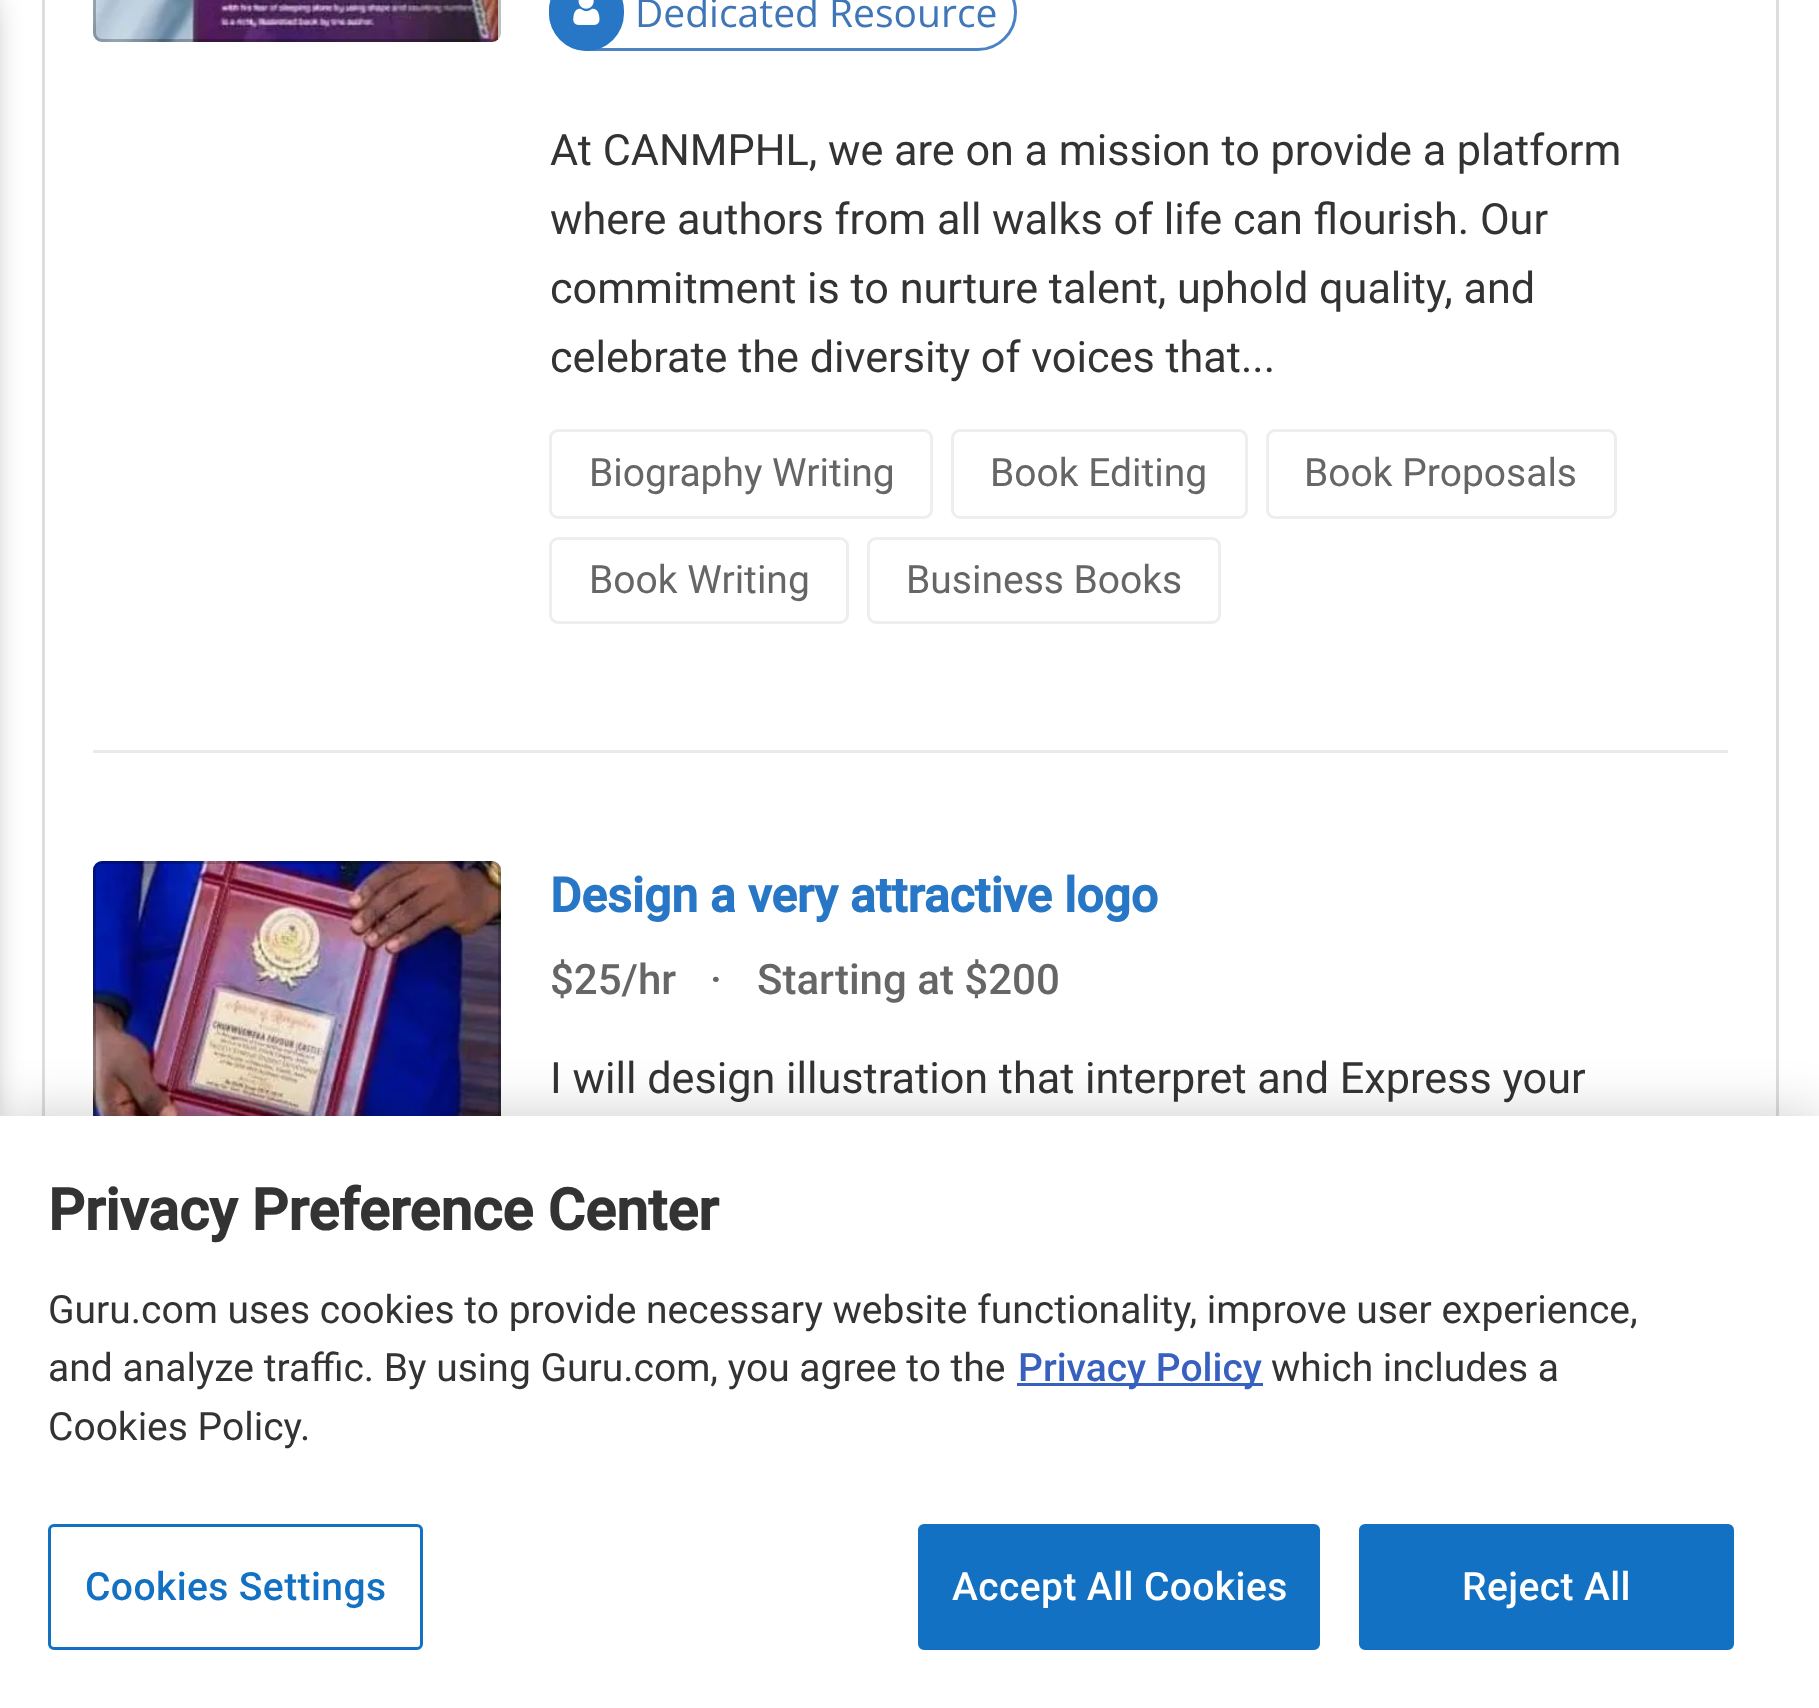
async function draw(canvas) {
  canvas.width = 1819;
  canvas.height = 1708;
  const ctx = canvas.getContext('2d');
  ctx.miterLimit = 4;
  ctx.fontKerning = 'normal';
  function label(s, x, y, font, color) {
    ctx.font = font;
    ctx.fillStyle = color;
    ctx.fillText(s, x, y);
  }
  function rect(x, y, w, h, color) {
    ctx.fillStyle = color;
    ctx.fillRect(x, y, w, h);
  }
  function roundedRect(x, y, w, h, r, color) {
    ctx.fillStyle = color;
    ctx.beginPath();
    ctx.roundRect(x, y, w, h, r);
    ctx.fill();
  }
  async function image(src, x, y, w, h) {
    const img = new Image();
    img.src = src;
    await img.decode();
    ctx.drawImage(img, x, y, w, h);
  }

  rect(0, 0, 1819, 1708, '#fff');
  ctx.fillStyle = '#00000099';
  ctx.filter = 'blur(18px)';
  ctx.beginPath();
  ctx.rect(-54, 0, 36, 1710);
  ctx.fill();
  ctx.filter = 'none';
  ctx.strokeStyle = '#ddd';
  ctx.lineWidth = 3;
  ctx.strokeRect(43.5, -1.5, 1734, 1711);
  rect(93, 750, 1635, 3, '#eaeaea');
  await image('assets/img1.png', 93, 0, 405, 42);
  ctx.beginPath();
  ctx.roundRect(94.5, -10.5, 405, 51, 7.5);
  ctx.strokeStyle = '#00000040';
  ctx.stroke();
  ctx.beginPath();
  ctx.roundRect(550.5, -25.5, 465, 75, 37.5);
  ctx.strokeStyle = '#4c83c3';
  ctx.stroke();
  roundedRect(549, -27, 75, 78, 37.5, '#2777c6');
  await image('assets/img2.png', 573, 0, 27, 25);
  label('Dedicated Resource', 635, 27, '39px Open Sans', '#3e76b8');
  label('At CANMPHL, we are on a mission to provide a platform', 550, 165, '43.2px Roboto', '#333');
  label('where authors from all walks of life can flourish. Our', 550, 234, '43.2px Roboto', '#333');
  label('commitment is to nurture talent, uphold quality, and', 550, 303, '43.2px Roboto', '#333');
  label('celebrate the diversity of voices that...', 550, 372, '43.2px Roboto', '#333');
  ctx.beginPath();
  ctx.roundRect(550.5, 430.5, 381, 87, 7.5);
  ctx.strokeStyle = '#eee';
  ctx.stroke();
  label('Biography Writing', 589, 486, '39px Roboto', '#666');
  ctx.beginPath();
  ctx.roundRect(952.5, 430.5, 294, 87, 7.5);
  ctx.stroke();
  label('Book Editing', 990, 486, '39px Roboto', '#666');
  ctx.beginPath();
  ctx.roundRect(1267.5, 430.5, 348, 87, 7.5);
  ctx.stroke();
  label('Book Proposals', 1304, 486, '39px Roboto', '#666');
  ctx.beginPath();
  ctx.roundRect(550.5, 538.5, 297, 84, 7.5);
  ctx.stroke();
  label('Book Writing', 589, 593, '39px Roboto', '#666');
  ctx.beginPath();
  ctx.roundRect(868.5, 538.5, 351, 84, 7.5);
  ctx.stroke();
  label('Business Books', 906, 593, '39px Roboto', '#666');
  await image('assets/img3.png', 93, 861, 408, 255);
  ctx.beginPath();
  ctx.roundRect(94.5, 862.5, 405, 270, 7.5);
  ctx.strokeStyle = '#00000040';
  ctx.stroke();
  label('Design a very attractive logo', 550, 912, 'bold 48px Roboto', '#2777c6');
  label('$25/hr', 550, 994, '500 42px Roboto', '#666');
  label('·', 710, 994, '500 42px Roboto', '#666');
  label('Starting at $200', 757, 994, '500 42px Roboto', '#666');
  label('I will design illustration that interpret and Express your', 550, 1093, '43.2px Roboto', '#333');
  ctx.fillStyle = '#00000033';
  ctx.filter = 'blur(27px)';
  ctx.beginPath();
  ctx.rect(0, 1116, 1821, 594);
  ctx.fill();
  ctx.filter = 'none';
  rect(0, 1116, 1819, 592, '#fff');
  label('Privacy Preference Center', 48, 1230, 'bold 57.6px Roboto', '#333');
  label('Guru.com uses cookies to provide necessary website functionality, improve user experience,', 48, 1323, '39px Roboto', '#333');
  label('and analyze traffic. By using Guru.com, you agree to the', 48, 1381, '39px Roboto', '#333');
  rect(1017, 1383, 246, 3, '#3860be');
  label('Privacy Policy', 1018, 1381, '500 39px Roboto', '#3860be');
  label('which includes a', 1271, 1381, '39px Roboto', '#333');
  label('Cookies Policy.', 48, 1440, '39px Roboto', '#333');
  ctx.beginPath();
  ctx.roundRect(49.5, 1525.5, 372, 123, 4.5);
  ctx.strokeStyle = '#1371c3';
  ctx.stroke();
  ctx.letterSpacing = '0.4px';
  label('Cookies Settings', 85, 1600, '500 39px Roboto', '#1371c3');
  ctx.beginPath();
  ctx.roundRect(919.5, 1525.5, 399, 123, 4.5);
  ctx.fill();
  ctx.stroke();
  label('Accept All Cookies', 952, 1600, '500 39px Roboto', '#fff');
  ctx.fillStyle = '#1371c3';
  ctx.beginPath();
  ctx.roundRect(1360.5, 1525.5, 372, 123, 4.5);
  ctx.fill();
  ctx.stroke();
  label('Reject All', 1462, 1600, '500 39px Roboto', '#fff');
}

draw(document.querySelector('canvas'));
